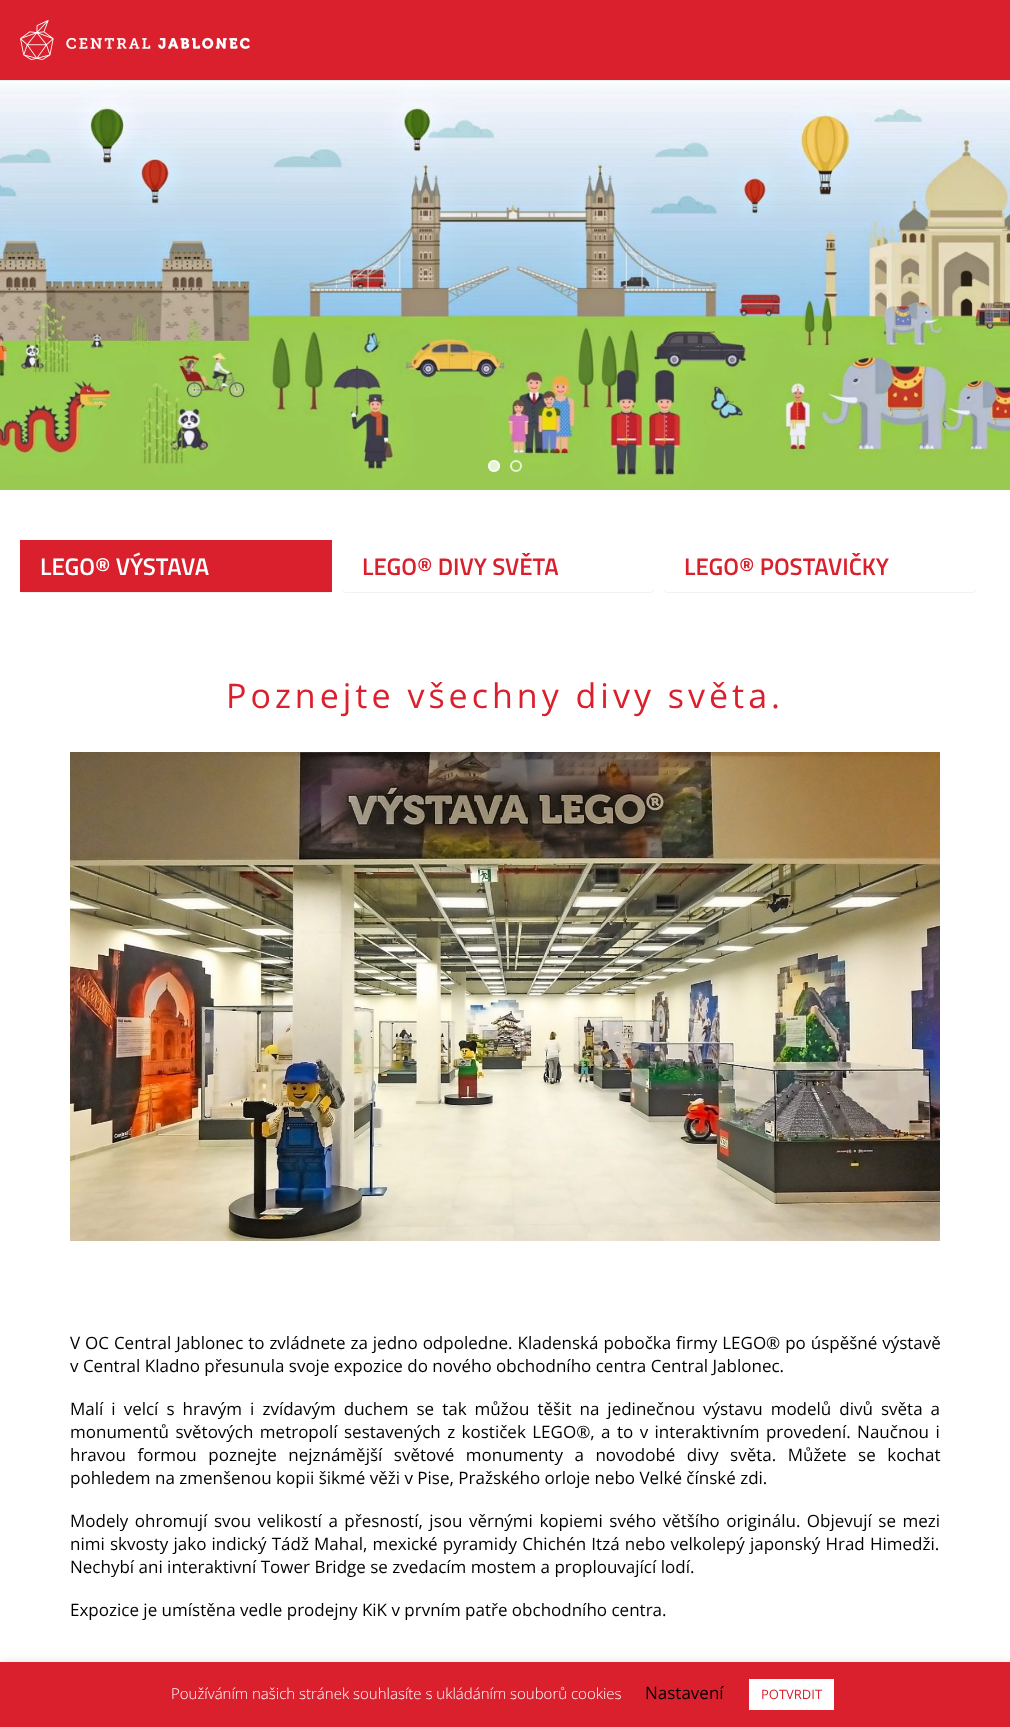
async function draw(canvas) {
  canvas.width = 1010;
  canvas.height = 1727;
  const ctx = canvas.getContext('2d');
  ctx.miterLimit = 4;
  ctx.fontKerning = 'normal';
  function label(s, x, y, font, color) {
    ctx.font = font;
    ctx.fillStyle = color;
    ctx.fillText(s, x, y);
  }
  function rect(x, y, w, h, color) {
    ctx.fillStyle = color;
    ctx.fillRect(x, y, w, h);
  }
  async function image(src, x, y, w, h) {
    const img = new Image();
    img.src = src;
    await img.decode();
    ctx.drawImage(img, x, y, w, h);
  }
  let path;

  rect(0, 0, 1010, 1727, '#fff');
  await image('assets/img2.png', 0, 80, 1010, 410);
  ctx.fillStyle = '#0000000d';
  ctx.filter = 'blur(0.5px)';
  ctx.beginPath();
  ctx.rect(0, 1, 1010, 80);
  ctx.fill();
  ctx.filter = 'none';
  rect(0, 0, 1010, 80, '#da202d');
  await image('assets/img1.png', 20, 20, 230, 40);
  ctx.fillStyle = '#e6f2d4';
  ctx.beginPath();
  ctx.arc(494, 466, 6, 0, 2 * Math.PI);
  ctx.fill();
  ctx.beginPath();
  ctx.arc(494, 466, 5, 0, 2 * Math.PI);
  ctx.strokeStyle = '#ffffffbf';
  ctx.lineWidth = 2;
  ctx.stroke();
  ctx.beginPath();
  ctx.arc(516, 466, 5, 0, 2 * Math.PI);
  ctx.stroke();
  rect(20, 540, 312, 52, '#da202d');
  ctx.save();
  path = new Path2D('M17 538H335V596H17ZM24 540H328C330 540 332 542 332 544V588C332 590 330 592 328 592H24C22 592 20 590 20 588V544C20 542 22 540 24 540Z');
  ctx.clip(path, 'evenodd');
  ctx.fillStyle = '#0000000d';
  ctx.filter = 'blur(0.5px)';
  ctx.beginPath();
  ctx.roundRect(20, 541, 312, 52, 4);
  ctx.fill();
  ctx.filter = 'none';
  ctx.restore();
  label('LEGO® VÝSTAVA', 40, 575, '600 24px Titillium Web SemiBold', '#fff');
  ctx.save();
  path = new Path2D('M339 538H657V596H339ZM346 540H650C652 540 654 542 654 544V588C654 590 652 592 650 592H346C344 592 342 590 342 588V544C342 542 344 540 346 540Z');
  ctx.clip(path, 'evenodd');
  ctx.fillStyle = '#0000000d';
  ctx.filter = 'blur(0.5px)';
  ctx.beginPath();
  ctx.roundRect(342, 541, 312, 52, 4);
  ctx.fill();
  ctx.filter = 'none';
  ctx.restore();
  label('LEGO® DIVY SVĚTA', 362, 575, '600 24px Titillium Web SemiBold', '#da202d');
  ctx.save();
  path = new Path2D('M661 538H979V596H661ZM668 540H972C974 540 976 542 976 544V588C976 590 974 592 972 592H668C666 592 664 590 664 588V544C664 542 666 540 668 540Z');
  ctx.clip(path, 'evenodd');
  ctx.fillStyle = '#0000000d';
  ctx.filter = 'blur(0.5px)';
  ctx.beginPath();
  ctx.roundRect(664, 541, 312, 52, 4);
  ctx.fill();
  ctx.filter = 'none';
  ctx.restore();
  label('LEGO® POSTAVIČKY', 684, 575, '600 24px Titillium Web SemiBold', '#da202d');
  ctx.letterSpacing = '4px';
  label('Poznejte všechny divy světa.', 226, 708, '34px Open Sans', '#da202d');
  await image('assets/img3.png', 70, 752, 870, 489);
  ctx.letterSpacing = '0px';
  ctx.wordSpacing = '0.5px';
  label('V OC Central Jablonec to zvládnete za jedno odpoledne. Kladenská pobočka firmy LEGO® po úspěšné výstavě', 70, 1349, '17px Open Sans', '#000');
  ctx.wordSpacing = '0px';
  label('v Central Kladno přesunula svoje expozice do nového obchodního centra Central Jablonec.', 70, 1372, '17px Open Sans', '#000');
  ctx.wordSpacing = '3.6px';
  label('Malí i velcí s hravým i zvídavým duchem se tak můžou těšit na jedinečnou výstavu modelů divů světa a', 70, 1415, '17px Open Sans', '#000');
  ctx.wordSpacing = '2px';
  label('monumentů světových metropolí sestavených z kostiček LEGO®, a to v interaktivním provedení. Naučnou i', 70, 1438, '17px Open Sans', '#000');
  ctx.wordSpacing = '7.1px';
  label('hravou formou poznejte nejznámější světové monumenty a novodobé divy světa. Můžete se kochat', 70, 1461, '17px Open Sans', '#000');
  ctx.wordSpacing = '0px';
  label('pohledem na zmenšenou kopii šikmé věži v Pise, Pražského orloje nebo Velké čínské zdi.', 70, 1484, '17px Open Sans', '#000');
  ctx.wordSpacing = '2.1px';
  label('Modely ohromují svou velikostí a přesností, jsou věrnými kopiemi svého většího originálu. Objevují se mezi', 70, 1527, '17px Open Sans', '#000');
  ctx.wordSpacing = '0.75px';
  label('nimi skvosty jako indický Tádž Mahal, mexické pyramidy Chichén Itzá nebo velkolepý japonský Hrad Himedži.', 70, 1550, '17px Open Sans', '#000');
  ctx.wordSpacing = '0px';
  label('Nechybí ani interaktivní Tower Bridge se zvedacím mostem a proplouvající lodí.', 70, 1573, '17px Open Sans', '#000');
  label('Expozice je umístěna vedle prodejny KiK v prvním patře obchodního centra.', 70, 1616, '17px Open Sans', '#000');
  ctx.fillStyle = '#acabab4d';
  ctx.filter = 'blur(5px)';
  ctx.beginPath();
  ctx.rect(0, 1661, 1010, 65);
  ctx.fill();
  ctx.filter = 'none';
  rect(0, 1662, 1010, 65, '#da202d');
  label('Používáním našich stránek souhlasíte s ukládáním souborů cookies', 171, 1699, '300 15px Open Sans', '#fff');
  label('Nastavení', 645, 1699, '17px Open Sans', '#000');
  rect(749, 1679, 85, 31, '#fff');
  label('POTVRDIT', 761, 1699, '13px Open Sans', '#da202d');
}

draw(document.querySelector('canvas'));
